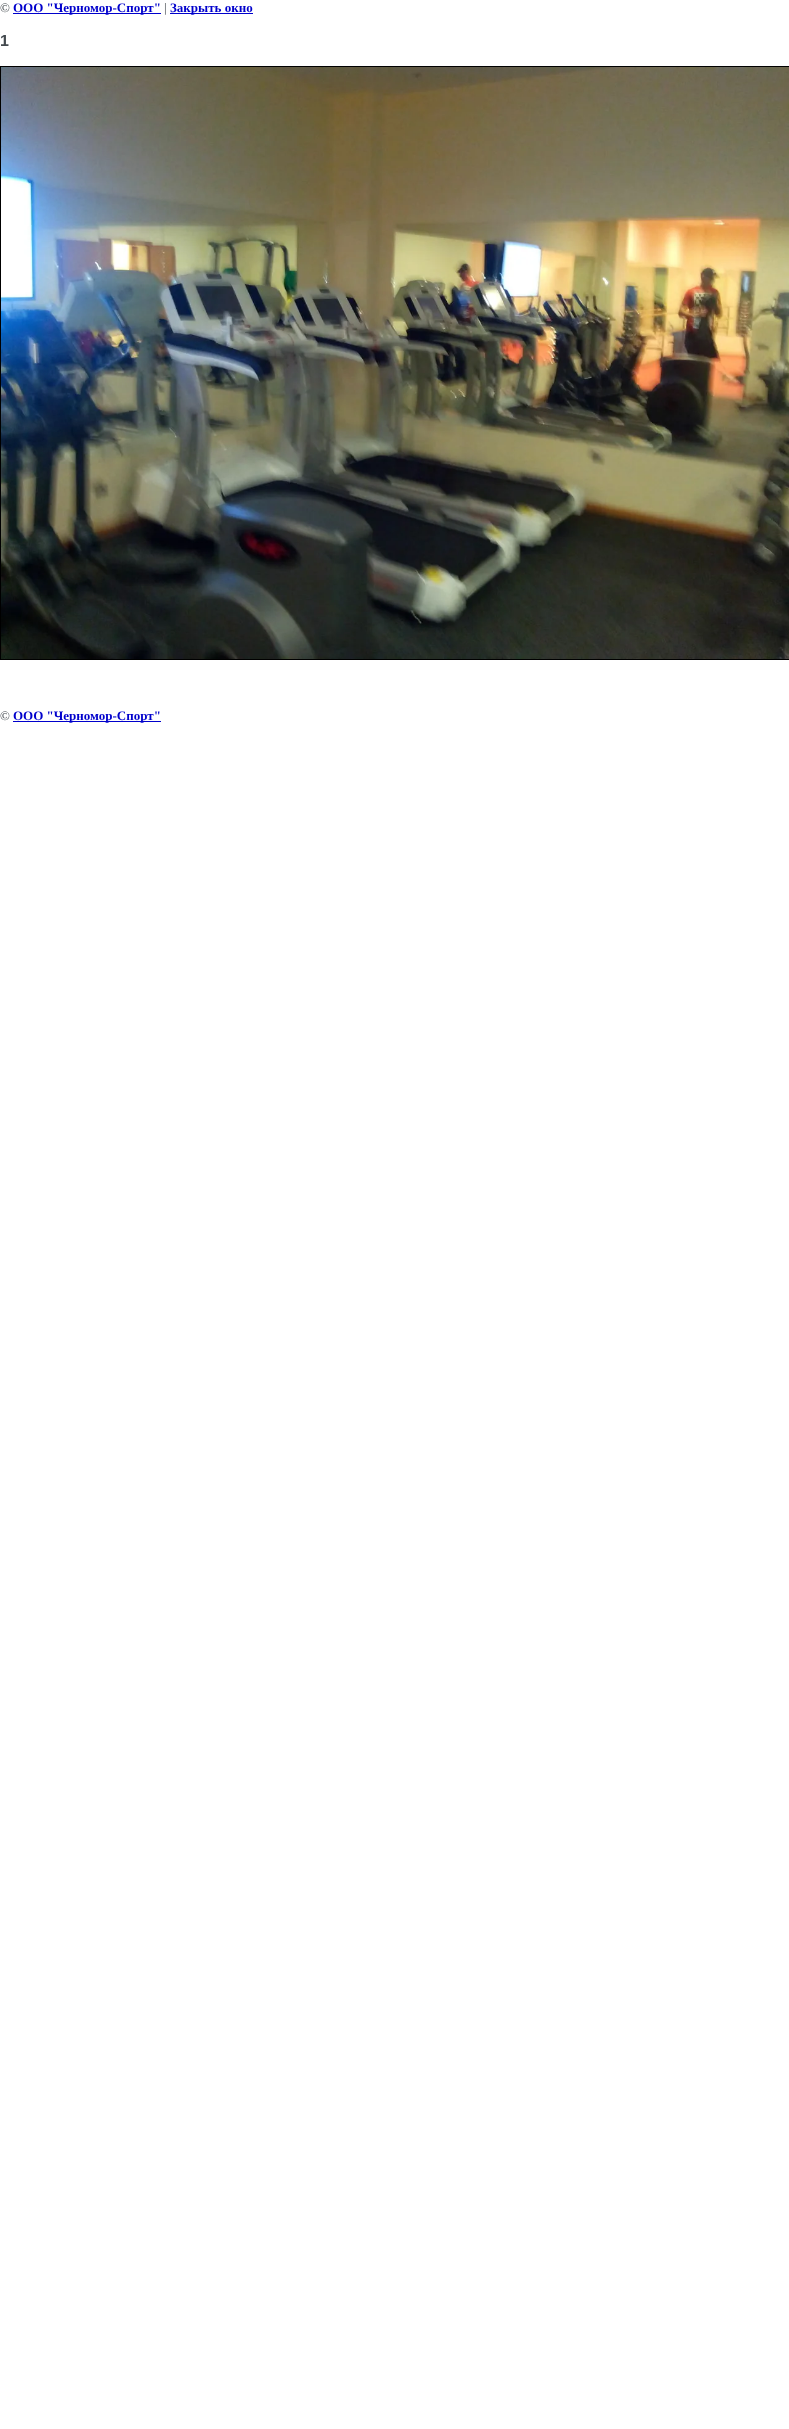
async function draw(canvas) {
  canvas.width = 789;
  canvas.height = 2429;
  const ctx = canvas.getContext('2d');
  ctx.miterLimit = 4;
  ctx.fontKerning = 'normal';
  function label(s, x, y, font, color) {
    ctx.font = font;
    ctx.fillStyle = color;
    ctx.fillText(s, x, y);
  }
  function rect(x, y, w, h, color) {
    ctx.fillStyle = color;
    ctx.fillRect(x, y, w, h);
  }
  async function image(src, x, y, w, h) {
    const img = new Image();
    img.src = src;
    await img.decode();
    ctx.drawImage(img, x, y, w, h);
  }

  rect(0, 0, 789, 2429, '#fff');
  label('©', 0, 12, '13px Liberation Serif', '#43494e');
  rect(13, 13, 148, 1, '#00c');
  label('ООО "Черномор-Спорт"', 13, 12, 'bold 13px Liberation Serif', '#00c');
  label('|', 164, 12, '13px Liberation Serif', '#43494e');
  rect(170, 13, 83, 1, '#00c');
  label('Закрыть окно', 170, 12, 'bold 13px Liberation Serif', '#00c');
  label('1', 0, 46, 'bold 16px Liberation Sans', '#43494e');
  ctx.strokeStyle = '#000';
  ctx.strokeRect(0.5, 66.5, 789, 593);
  await image('assets/img1.png', 1, 67, 788, 592);
  label('©', 0, 720, '13px Liberation Serif', '#43494e');
  rect(13, 721, 148, 1, '#00c');
  label('ООО "Черномор-Спорт"', 13, 720, 'bold 13px Liberation Serif', '#00c');
}

draw(document.querySelector('canvas'));
